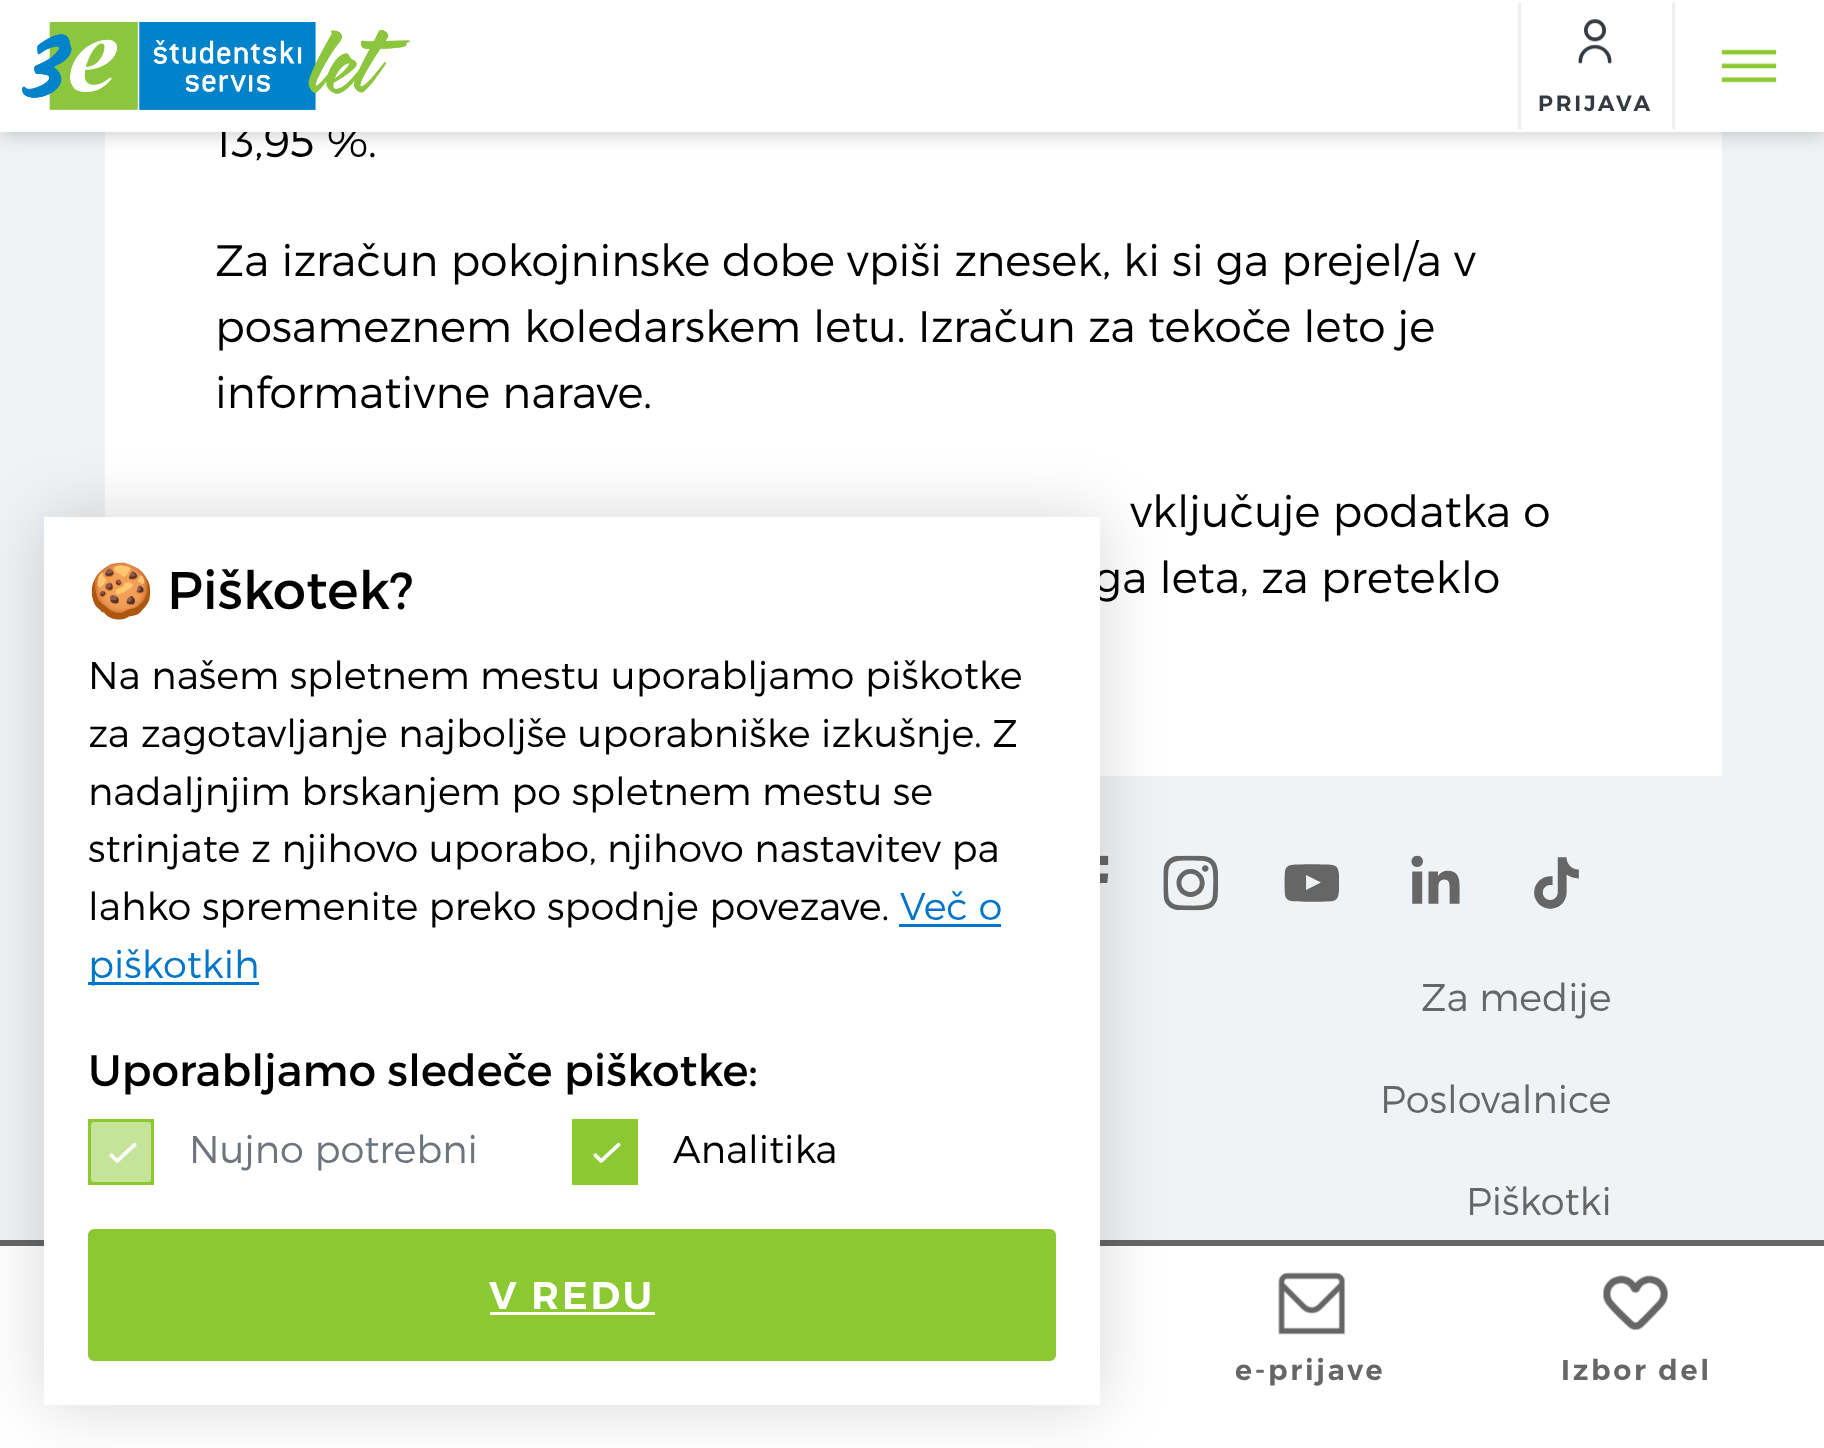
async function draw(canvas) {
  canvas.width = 1824;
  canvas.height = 1448;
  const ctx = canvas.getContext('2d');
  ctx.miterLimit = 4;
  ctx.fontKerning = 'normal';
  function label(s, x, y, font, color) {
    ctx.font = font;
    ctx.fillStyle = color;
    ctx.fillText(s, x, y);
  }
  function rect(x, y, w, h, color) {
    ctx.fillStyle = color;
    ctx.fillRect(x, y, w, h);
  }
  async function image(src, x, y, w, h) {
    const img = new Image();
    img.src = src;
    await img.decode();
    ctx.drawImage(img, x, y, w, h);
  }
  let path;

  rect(0, 0, 1824, 1448, '#f0f3f5');
  rect(105, 132, 1617, 644, '#fff');
  ctx.fillStyle = '#0000003d';
  ctx.filter = 'blur(11px)';
  ctx.beginPath();
  ctx.rect(0, 0, 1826, 132);
  ctx.fill();
  ctx.filter = 'none';
  label('13,95 %.', 215, 157, '300 44px Montserrat', '#000');
  rect(0, 0, 1824, 132, '#fff');
  await image('assets/img1.png', 22, 22, 388, 88);
  path = new Path2D('M1520.5 129.5L1519.5 126.5V5L1520.5 2.5');
  ctx.strokeStyle = '#eee';
  ctx.lineWidth = 2.8;
  ctx.stroke(path);
  await image('assets/img2.png', 1578, 19, 34, 45);
  ctx.letterSpacing = '2.75px';
  label('PRIJAVA', 1538, 111, '600 22px Montserrat', '#343a40');
  path = new Path2D('M1674.5 129.5L1673.5 126.5V5L1674.5 2.5');
  ctx.stroke(path);
  await image('assets/img3.png', 1721, 49, 56, 34);
  ctx.letterSpacing = '0px';
  label('Za izračun pokojninske dobe vpiši znesek, ki si ga prejel/a v', 215, 276, '300 44px Montserrat', '#000');
  label('posameznem koledarskem letu. Izračun za tekoče leto je', 215, 342, '300 44px Montserrat', '#000');
  label('informativne narave.', 215, 408, '300 44px Montserrat', '#000');
  label('vključuje podatka o', 1130, 527, '300 44px Montserrat', '#000');
  label('ga leta, za preteklo', 1094, 593, '300 44px Montserrat', '#000');
  await image('assets/img6.png', 1100, 855, 9, 28);
  await image('assets/img7.png', 1163, 855, 55, 56);
  rect(0, 1246, 1824, 202, '#fff');
  rect(0, 1240, 1824, 6, '#666');
  ctx.fillStyle = '#00000029';
  ctx.filter = 'blur(33px)';
  ctx.beginPath();
  ctx.rect(44, 517, 1056, 888);
  ctx.fill();
  ctx.filter = 'none';
  rect(44, 517, 1056, 888, '#fff');
  label('🍪', 88, 609, '53px Noto Color Emoji', '#000');
  label('Piškotek?', 167, 609, '53px Montserrat', '#000');
  label('Na našem spletnem mestu uporabljamo piškotke', 88, 689, '300 38.5px Montserrat', '#000');
  label('za zagotavljanje najboljše uporabniške izkušnje. Z', 88, 747, '300 38.5px Montserrat', '#000');
  label('nadaljnjim brskanjem po spletnem mestu se', 88, 805, '300 38.5px Montserrat', '#000');
  label('strinjate z njihovo uporabo, njihovo nastavitev pa', 88, 862, '300 38.5px Montserrat', '#000');
  label('lahko spremenite preko spodnje povezave.', 88, 920, '300 38.5px Montserrat', '#000');
  label('Več o', 900, 920, '300 38.5px Montserrat', '#0075c9');
  rect(899, 924, 102, 3, '#0075c9');
  rect(88, 982, 171, 3, '#0075c9');
  label('piškotkih', 88, 978, '300 38.5px Montserrat', '#0075c9');
  label('Uporabljamo sledeče piškotke:', 88, 1086, '44px Montserrat', '#000');
  rect(91, 1122, 60, 60, '#c5e499');
  ctx.beginPath();
  ctx.roundRect(89.5, 1120.5, 63, 63, 4.5);
  ctx.strokeStyle = '#8bc832';
  ctx.lineWidth = 3;
  ctx.stroke();
  await image('assets/img4.png', 109, 1142, 28, 21);
  ctx.strokeRect(89.5, 1120.5, 63, 63);
  label('Nujno potrebni', 189, 1163, '300 38.5px Montserrat', '#6c757d');
  rect(575, 1122, 60, 60, '#8bc832');
  ctx.beginPath();
  ctx.roundRect(573.5, 1120.5, 63, 63, 4.5);
  ctx.stroke();
  await image('assets/img5.png', 593, 1142, 28, 21);
  ctx.strokeRect(573.5, 1120.5, 63, 63);
  label('Analitika', 673, 1163, '300 38.5px Montserrat', '#000');
  ctx.fillStyle = '#8bc832';
  ctx.beginPath();
  ctx.roundRect(89.5, 1230.5, 965, 129, 4.5);
  ctx.fill();
  ctx.stroke();
  ctx.letterSpacing = '2.75px';
  label('V REDU', 489, 1309, '600 38.5px Montserrat', '#fff');
  rect(490, 1312, 165, 3, '#fff');
  await image('assets/img8.png', 1284, 864, 55, 38);
  await image('assets/img9.png', 1411, 855, 49, 49);
  await image('assets/img10.png', 1534, 857, 45, 52);
  ctx.letterSpacing = '0px';
  label('Za medije', 1421, 1011, '300 38.5px Montserrat', '#666');
  label('Poslovalnice', 1380, 1113, '300 38.5px Montserrat', '#666');
  label('Piškotki', 1466, 1215, '300 38.5px Montserrat', '#666');
  await image('assets/img11.png', 1278, 1272, 68, 63);
  ctx.letterSpacing = '2.75px';
  label('e-prijave', 1235, 1380, '600 28.5px Montserrat', '#666');
  await image('assets/img12.png', 1603, 1275, 66, 55);
  label('Izbor del', 1561, 1380, '600 28.5px Montserrat', '#666');
}

draw(document.querySelector('canvas'));
